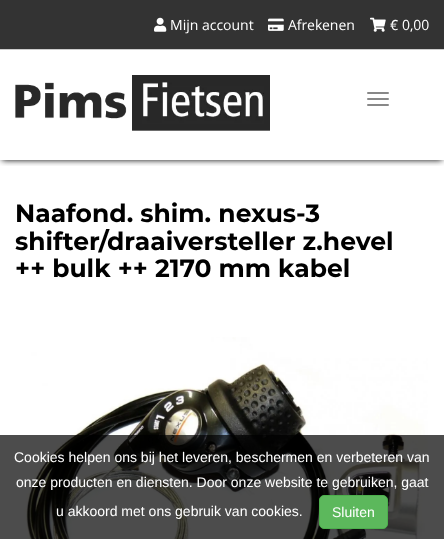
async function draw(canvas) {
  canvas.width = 444;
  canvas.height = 539;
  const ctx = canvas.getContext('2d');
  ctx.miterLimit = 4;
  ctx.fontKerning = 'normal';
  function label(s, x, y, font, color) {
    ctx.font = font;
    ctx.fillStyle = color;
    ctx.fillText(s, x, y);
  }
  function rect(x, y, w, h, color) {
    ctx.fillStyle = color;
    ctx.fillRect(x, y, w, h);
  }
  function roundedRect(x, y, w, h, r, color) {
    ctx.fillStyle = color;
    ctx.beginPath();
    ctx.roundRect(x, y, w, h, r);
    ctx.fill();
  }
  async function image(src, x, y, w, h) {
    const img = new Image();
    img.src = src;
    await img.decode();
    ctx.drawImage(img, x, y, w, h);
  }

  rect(0, 0, 444, 539, '#fff');
  ctx.save();
  ctx.beginPath();
  ctx.rect(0, 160, 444, 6);
  ctx.clip();
  ctx.fillStyle = '#000';
  ctx.filter = 'blur(3px)';
  ctx.beginPath();
  ctx.rect(2, 4, 440, 156);
  ctx.fill();
  ctx.filter = 'none';
  ctx.restore();
  rect(0, 0, 444, 49, '#333');
  rect(0, 49, 444, 1, '#ccc');
  await image('assets/img1.png', 154, 17, 13, 15);
  label('Mijn account', 170, 30, '14px Open Sans', '#fff');
  await image('assets/img2.png', 268, 18, 16, 13);
  label('Afrekenen', 288, 30, '14px Open Sans', '#fff');
  await image('assets/img3.png', 370, 17, 16, 15);
  label('€ 0,00', 390, 30, '14px Open Sans', '#fff');
  await image('assets/img4.png', 15, 75, 255, 56);
  roundedRect(367, 92, 22, 2, 1, '#888');
  roundedRect(367, 98, 22, 2, 1, '#888');
  roundedRect(367, 104, 22, 2, 1, '#888');
  label('Naafond. shim. nexus-3', 15, 222, 'bold 25px Montserrat', '#000');
  label('shifter/draaiversteller z.hevel', 15, 250, 'bold 25px Montserrat', '#000');
  label('++ bulk ++ 2170 mm kabel', 15, 277, 'bold 25px Montserrat', '#000');
  await image('assets/img5.png', 24, 337, 404, 202);
  rect(0, 435, 444, 104, '#000000b3');
  label('Cookies helpen ons bij het leveren, beschermen en verbeteren van', 14, 462, '14px Liberation Sans', '#fff');
  label('onze producten en diensten. Door onze website te gebruiken, gaat', 16, 487, '14px Liberation Sans', '#fff');
  label('u akkoord met ons gebruik van cookies.', 56, 516, '14px Liberation Sans', '#fff');
  ctx.fillStyle = '#5cb85c';
  ctx.beginPath();
  ctx.roundRect(319.5, 495.5, 68, 33, 4.5);
  ctx.fill();
  ctx.strokeStyle = '#4cae4c';
  ctx.stroke();
  label('Sluiten', 332, 517, '14px Liberation Sans', '#fff');
}

draw(document.querySelector('canvas'));
